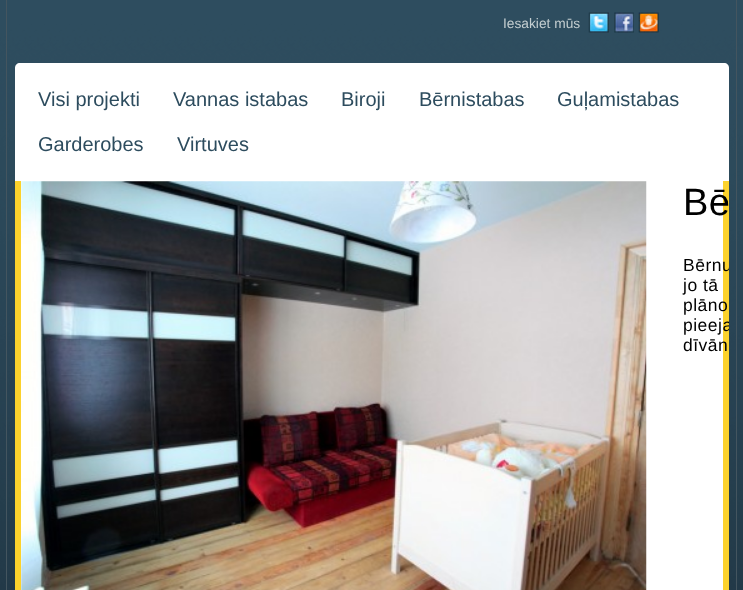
async function draw(canvas) {
  canvas.width = 743;
  canvas.height = 590;
  const ctx = canvas.getContext('2d');
  ctx.miterLimit = 4;
  ctx.fontKerning = 'normal';
  function label(s, x, y, font, color) {
    ctx.font = font;
    ctx.fillStyle = color;
    ctx.fillText(s, x, y);
  }
  function rect(x, y, w, h, color) {
    ctx.fillStyle = color;
    ctx.fillRect(x, y, w, h);
  }
  async function image(src, x, y, w, h) {
    const img = new Image();
    img.src = src;
    await img.decode();
    ctx.drawImage(img, x, y, w, h);
  }
  let path;

  rect(0, 0, 743, 590, '#fff');
  await image('assets/img1.png', 0, 0, 743, 590);
  rect(736, 0, 1, 590, '#44555f');
  rect(6, 0, 1, 590, '#44555f');
  label('Iesakiet mūs', 503, 28, '13.75px Liberation Sans', '#c4ced0');
  await image('assets/img2.png', 588, 12, 21, 21);
  await image('assets/img3.png', 614, 12, 20, 21);
  await image('assets/img4.png', 638, 12, 21, 21);
  ctx.fillStyle = '#fff';
  path = new Path2D('M20 63H724C727 63 729 65 729 68V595H15V68C15 65 17 63 20 63Z');
  ctx.fill(path);
  label('Visi projekti', 38, 106, '20px Liberation Sans', '#2d4c5e');
  label('Vannas istabas', 173, 106, '20px Liberation Sans', '#2d4c5e');
  label('Biroji', 341, 106, '20px Liberation Sans', '#2d4c5e');
  label('Bērnistabas', 419, 106, '20px Liberation Sans', '#2d4c5e');
  label('Guļamistabas', 557, 106, '20px Liberation Sans', '#2d4c5e');
  label('Garderobes', 38, 151, '20px Liberation Sans', '#2d4c5e');
  label('Virtuves', 177, 151, '20px Liberation Sans', '#2d4c5e');
  rect(723, 181, 6, 409, '#fcd22c');
  rect(15, 181, 6, 409, '#fcd22c');
  await image('assets/img5.png', 21, 181, 626, 409);
  ctx.letterSpacing = '0.5px';
  label('Bē', 683, 215, '38px Liberation Sans', '#000');
  ctx.save();
  path = new Path2D('M20 63H724C727 63 729 65 729 68V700H15V68C15 65 17 63 20 63Z');
  ctx.clip(path);
  label('Bērnu', 683, 271, '17.5px Liberation Sans', '#000');
  ctx.restore();
  label('jo tā', 683, 291, '17.5px Liberation Sans', '#000');
  label('plāno', 683, 311, '17.5px Liberation Sans', '#000');
  ctx.save();
  path = new Path2D('M20 63H724C727 63 729 65 729 68V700H15V68C15 65 17 63 20 63Z');
  ctx.clip(path);
  label('pieeja', 683, 331, '17.5px Liberation Sans', '#000');
  ctx.restore();
  label('dīvān', 683, 351, '17.5px Liberation Sans', '#000');
}

draw(document.querySelector('canvas'));
